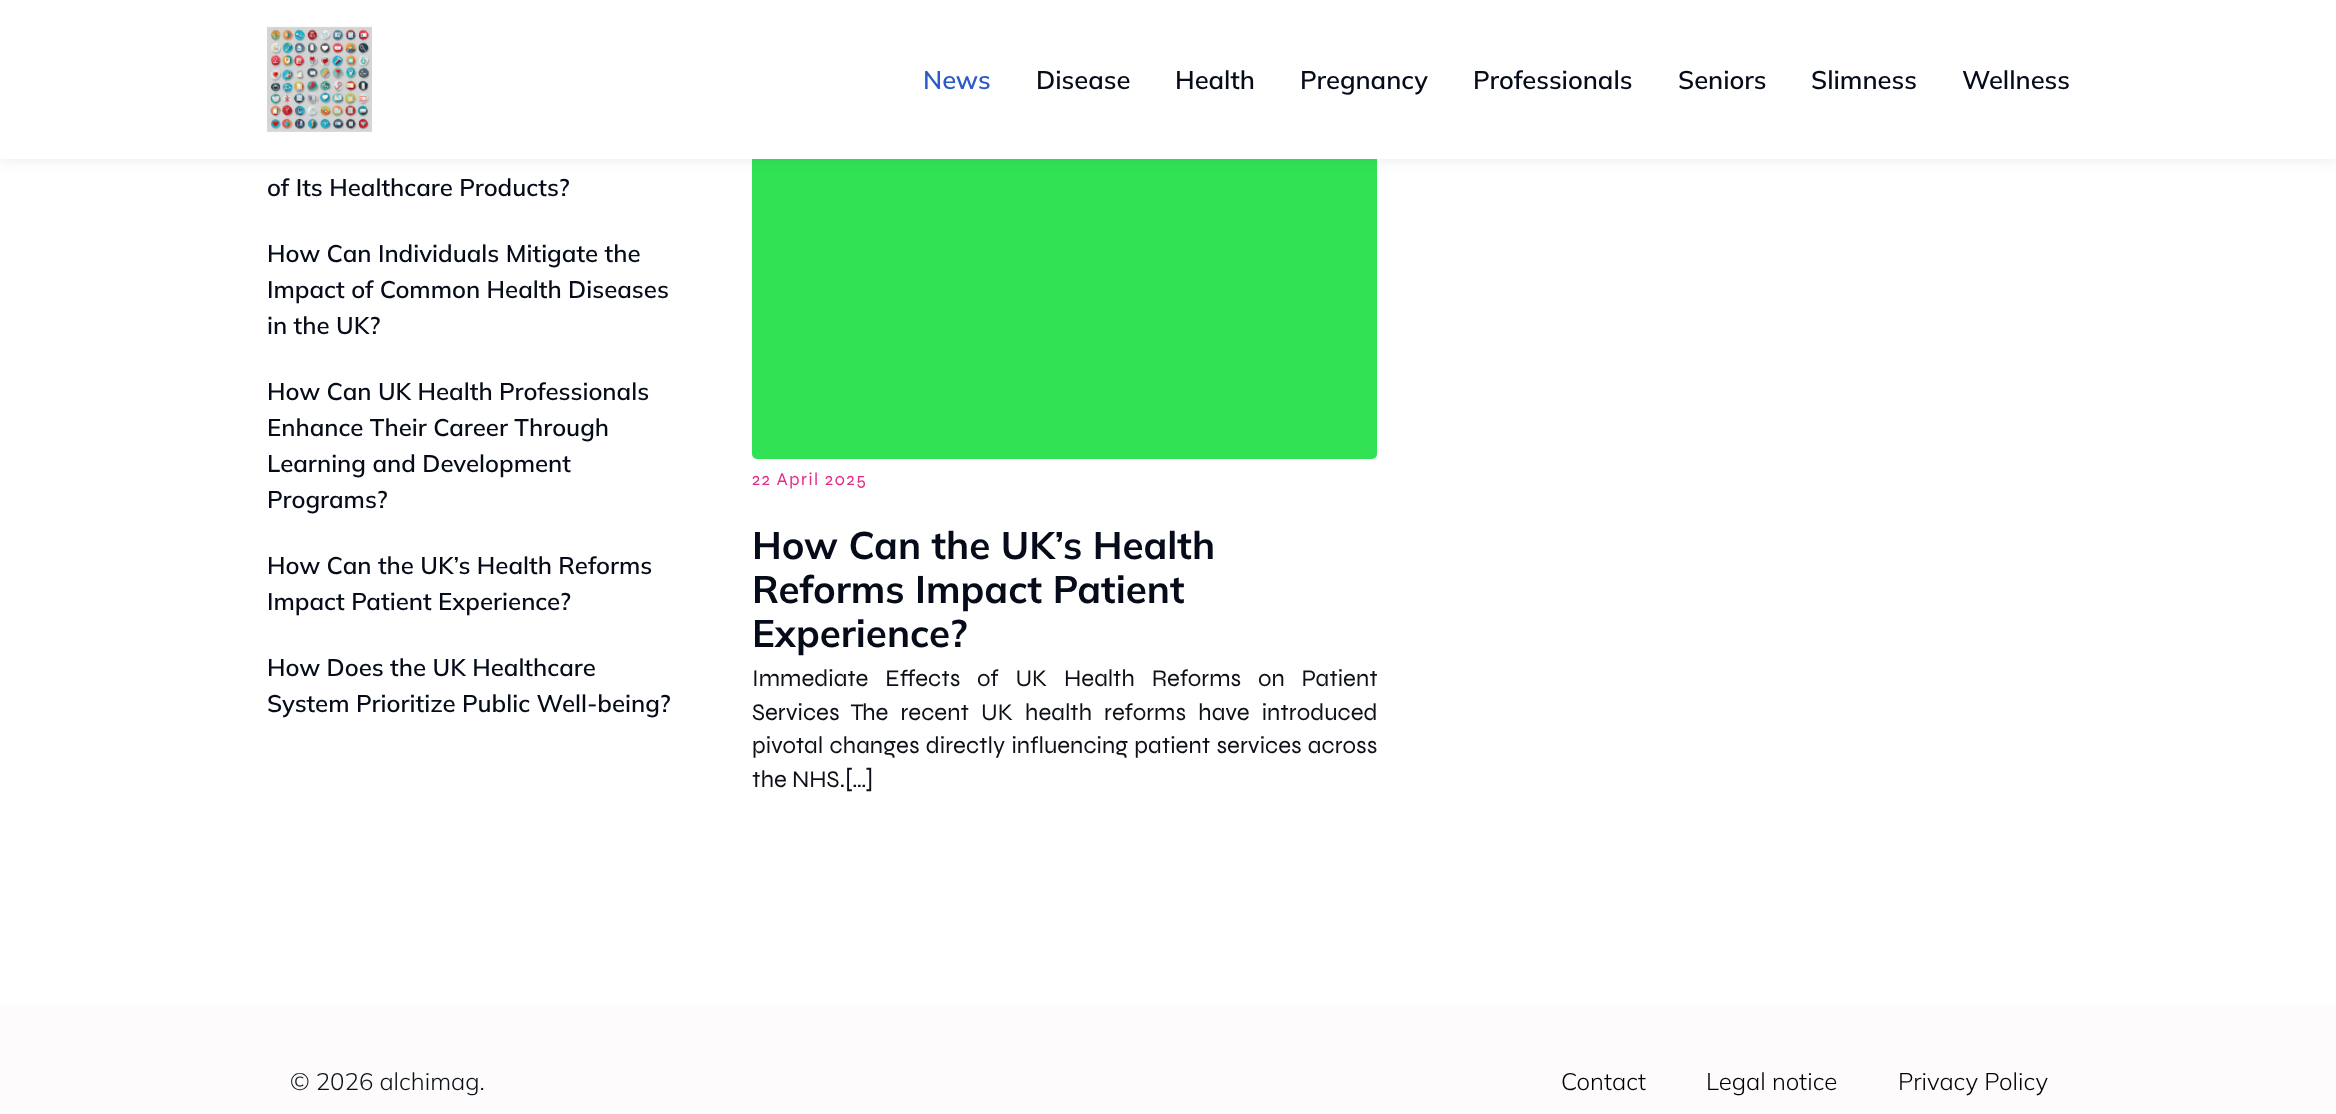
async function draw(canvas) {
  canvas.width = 2336;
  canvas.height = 1114;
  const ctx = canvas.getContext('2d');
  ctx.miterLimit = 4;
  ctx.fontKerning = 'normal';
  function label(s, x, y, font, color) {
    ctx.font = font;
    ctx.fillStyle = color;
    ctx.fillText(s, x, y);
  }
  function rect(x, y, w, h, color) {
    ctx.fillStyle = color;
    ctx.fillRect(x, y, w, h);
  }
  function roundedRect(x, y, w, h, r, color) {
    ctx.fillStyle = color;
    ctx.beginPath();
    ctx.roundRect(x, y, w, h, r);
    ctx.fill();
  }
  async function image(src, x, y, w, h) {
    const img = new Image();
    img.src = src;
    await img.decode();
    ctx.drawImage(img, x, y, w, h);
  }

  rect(0, 0, 2336, 1114, '#fff');
  roundedRect(752, 107, 625, 352, 5, '#32e255');
  ctx.fillStyle = '#1719271a';
  ctx.filter = 'blur(7.5px)';
  ctx.beginPath();
  ctx.rect(0, 0, 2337, 159);
  ctx.fill();
  ctx.filter = 'none';
  rect(0, 0, 2336, 159, '#fff');
  await image('assets/img1.png', 267, 26, 105, 106);
  label('News', 923, 89, '600 25.5px Mulish', '#2b5bca');
  label('Disease', 1036, 89, '600 25.5px Mulish', '#050b19');
  label('Health', 1175, 89, '600 25.5px Mulish', '#050b19');
  label('Pregnancy', 1300, 89, '600 25.5px Mulish', '#050b19');
  label('Professionals', 1473, 89, '600 25.5px Mulish', '#050b19');
  label('Seniors', 1678, 89, '600 25.5px Mulish', '#050b19');
  label('Slimness', 1811, 89, '600 25.5px Mulish', '#050b19');
  label('Wellness', 1962, 89, '600 25.5px Mulish', '#050b19');
  label('of Its Healthcare Products?', 267, 196, '600 24px Mulish', '#050b19');
  label('How Can Individuals Mitigate the', 267, 262, '600 24px Mulish', '#050b19');
  label('Impact of Common Health Diseases', 267, 298, '600 24px Mulish', '#050b19');
  label('in the UK?', 267, 334, '600 24px Mulish', '#050b19');
  label('How Can UK Health Professionals', 267, 400, '600 24px Mulish', '#050b19');
  label('Enhance Their Career Through', 267, 436, '600 24px Mulish', '#050b19');
  label('Learning and Development', 267, 472, '600 24px Mulish', '#050b19');
  label('Programs?', 267, 508, '600 24px Mulish', '#050b19');
  label('How Can the UK’s Health Reforms', 267, 574, '600 24px Mulish', '#050b19');
  label('Impact Patient Experience?', 267, 610, '600 24px Mulish', '#050b19');
  label('How Does the UK Healthcare', 267, 676, '600 24px Mulish', '#050b19');
  label('System Prioritize Public Well-being?', 267, 712, '600 24px Mulish', '#050b19');
  ctx.letterSpacing = '1.5px';
  label('22 April 2025', 752, 485, '18px Syne', '#e12d87');
  ctx.letterSpacing = '0px';
  label('How Can the UK’s Health', 752, 559, 'bold 38.4px Mulish', '#050b19');
  label('Reforms Impact Patient', 752, 603, 'bold 38.4px Mulish', '#050b19');
  label('Experience?', 752, 647, 'bold 38.4px Mulish', '#050b19');
  ctx.wordSpacing = '11.75px';
  label('Immediate Effects of UK Health Reforms on Patient', 752, 686, '24px Syne', '#0d1018');
  ctx.wordSpacing = '7px';
  label('Services The recent UK health reforms have introduced', 752, 720, '24px Syne', '#0d1018');
  ctx.wordSpacing = '1.25px';
  label('pivotal changes directly influencing patient services across', 752, 753, '24px Syne', '#0d1018');
  ctx.wordSpacing = '0px';
  label('the NHS.[…]', 752, 787, '24px Syne', '#0d1018');
  rect(0, 1004, 2336, 110, '#fefbfc');
  label('© 2026 alchimag.', 290, 1090, '300 24px Mulish', '#0d1018');
  label('Contact', 1561, 1090, '300 24px Mulish', '#000');
  label('Legal notice', 1706, 1090, '300 24px Mulish', '#000');
  label('Privacy Policy', 1898, 1090, '300 24px Mulish', '#000');
}

draw(document.querySelector('canvas'));
